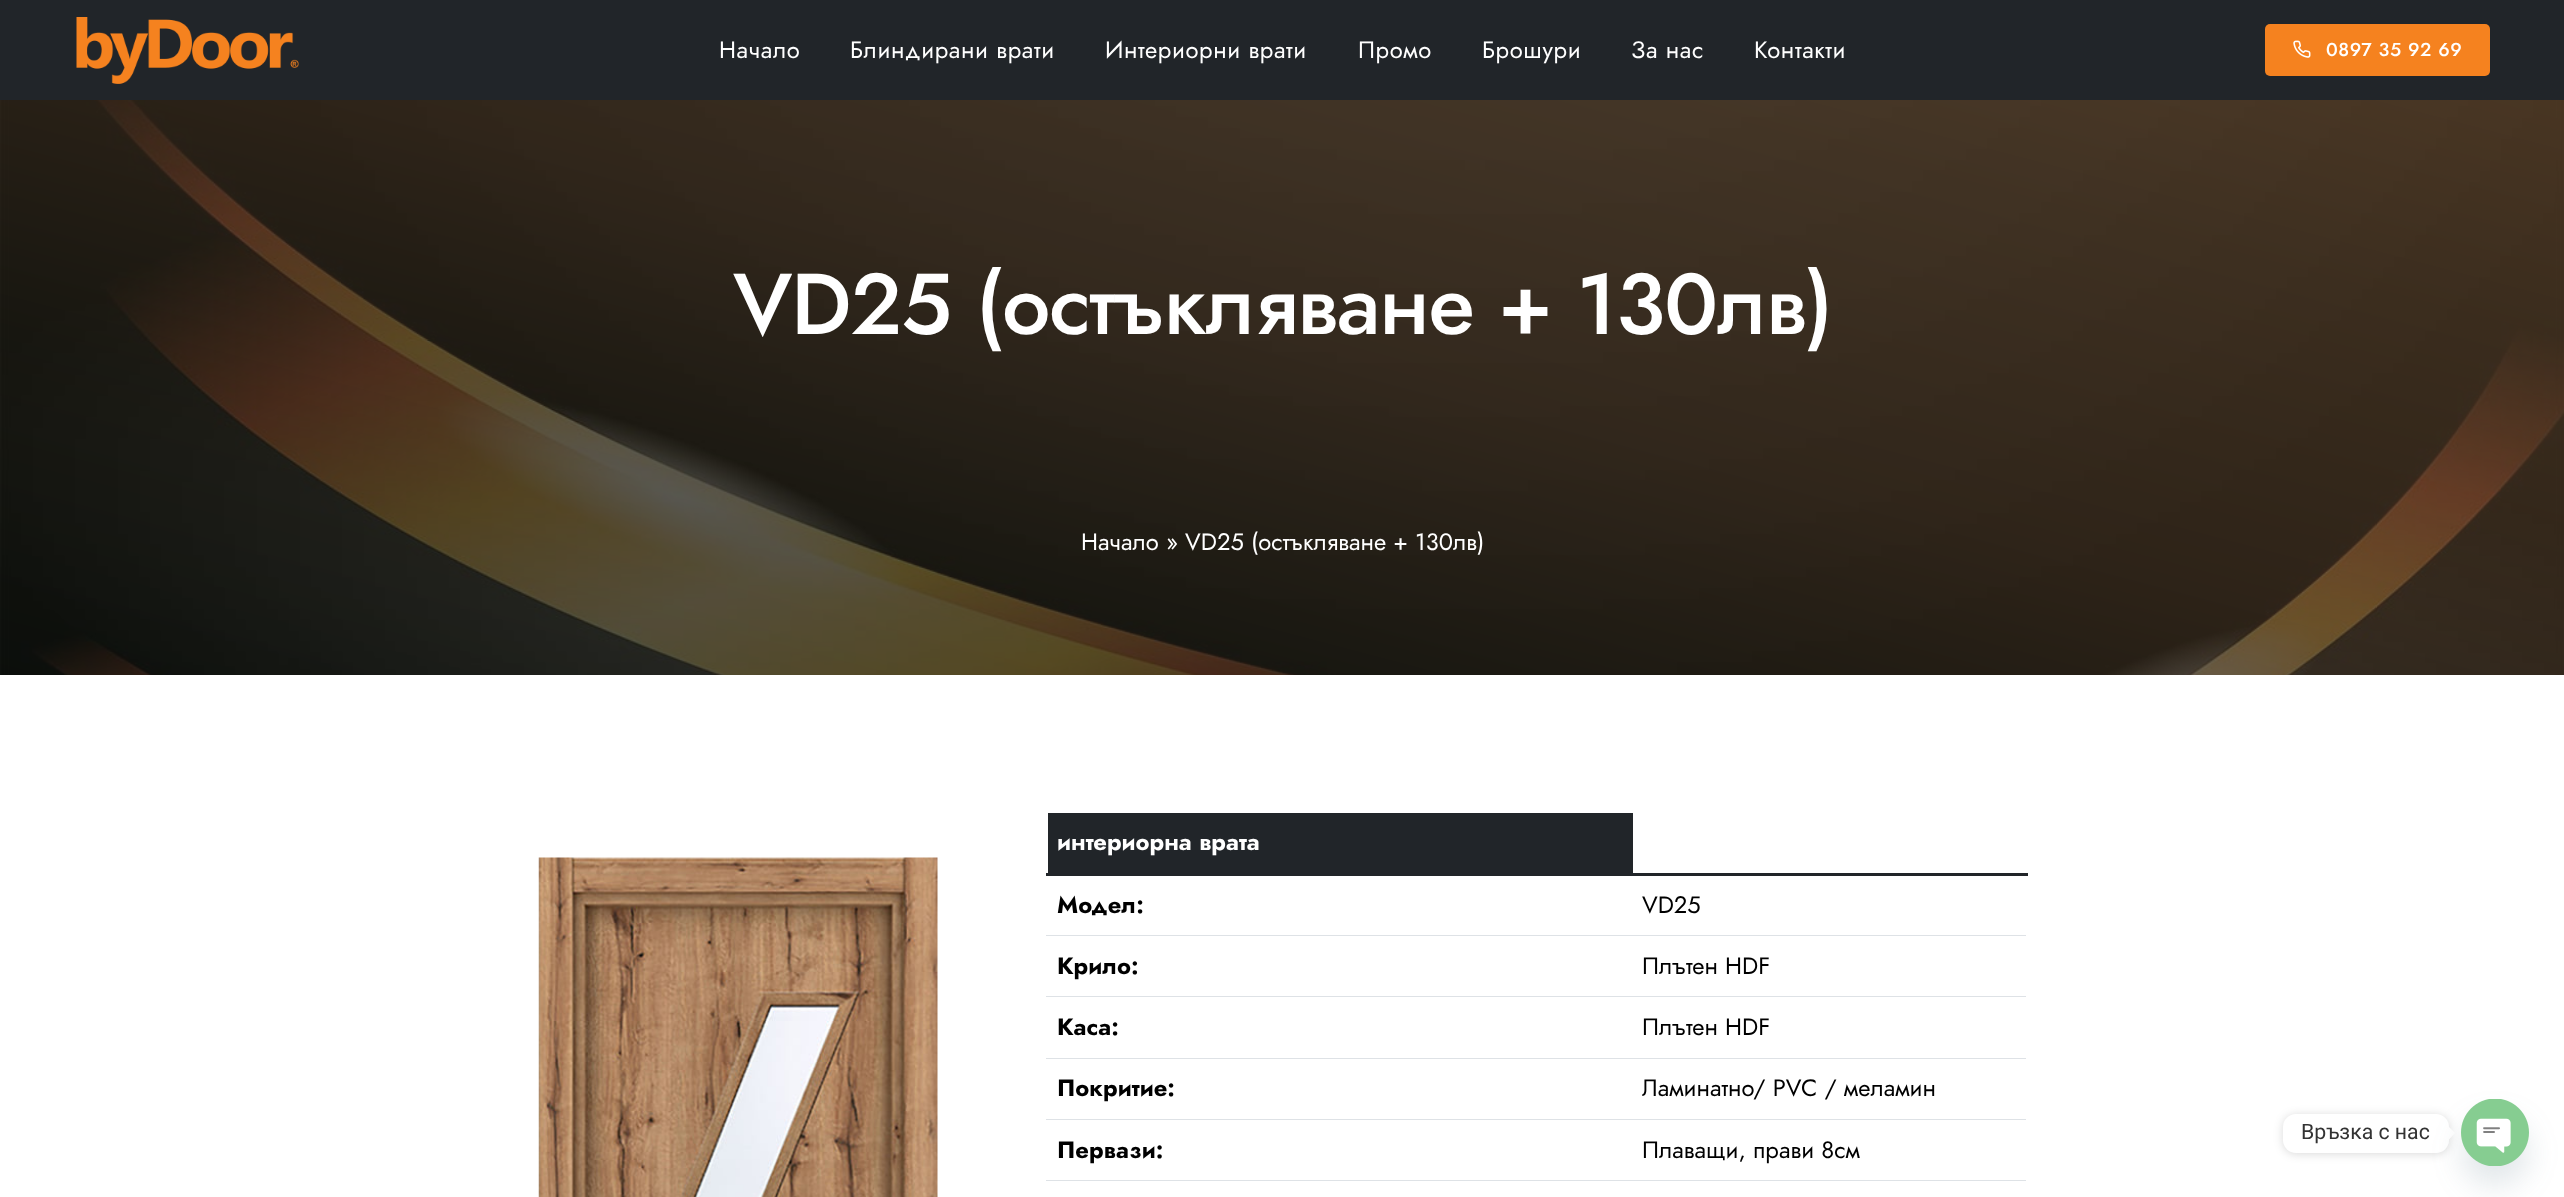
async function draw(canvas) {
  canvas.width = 2564;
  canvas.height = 1197;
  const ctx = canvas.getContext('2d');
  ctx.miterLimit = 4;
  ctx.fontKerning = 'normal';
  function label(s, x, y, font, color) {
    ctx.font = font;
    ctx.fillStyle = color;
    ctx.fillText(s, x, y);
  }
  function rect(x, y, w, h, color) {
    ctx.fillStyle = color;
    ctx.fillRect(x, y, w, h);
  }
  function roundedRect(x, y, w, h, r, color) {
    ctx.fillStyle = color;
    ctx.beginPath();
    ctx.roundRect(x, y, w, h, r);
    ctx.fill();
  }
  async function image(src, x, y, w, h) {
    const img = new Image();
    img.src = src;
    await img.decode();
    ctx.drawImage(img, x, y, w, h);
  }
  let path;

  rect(0, 0, 2564, 1197, '#fff');
  rect(0, 0, 2564, 100, '#212529');
  await image('assets/img1.png', 76, 17, 223, 67);
  ctx.letterSpacing = '0.6px';
  label('Начало', 719, 58, '23.75px Jost', '#fff');
  label('Блиндирани врати', 850, 58, '23.75px Jost', '#fff');
  label('Интериорни врати', 1105, 58, '23.75px Jost', '#fff');
  label('Промо', 1358, 58, '23.75px Jost', '#fff');
  label('Брошури', 1482, 58, '23.75px Jost', '#fff');
  label('За нас', 1631, 58, '23.75px Jost', '#fff');
  label('Контакти', 1754, 58, '23.75px Jost', '#fff');
  roundedRect(2265, 24, 225, 52, 5, '#f5821f');
  await image('assets/img2.png', 2293, 40, 18, 18);
  label('0897 35 92 69', 2326, 56, '500 18.75px Jost', '#fff');
  await image('assets/img3.png', 0, 100, 2564, 575);
  ctx.letterSpacing = '-1.25px';
  label('VD25 (остъкляване + 130лв)', 733, 334, '500 86px Jost', '#fff');
  ctx.letterSpacing = '0px';
  label('Начало » VD25 (остъкляване + 130лв)', 1081, 550, '23.75px Jost', '#fff');
  await image('assets/img4.png', 538, 857, 400, 340);
  rect(1048, 813, 585, 60, '#212529');
  label('интериорна врата', 1057, 850, 'bold 23.75px Jost', '#fff');
  rect(1046, 873, 982, 3, '#212529');
  label('Модел:', 1057, 913, 'bold 23.75px Jost', '#000');
  rect(1046, 935, 980, 1, '#dee2e6');
  label('VD25', 1642, 913, '23.75px Jost', '#000');
  label('Крило:', 1057, 974, 'bold 23.75px Jost', '#000');
  rect(1046, 996, 980, 1, '#dee2e6');
  label('Плътен HDF', 1642, 974, '23.75px Jost', '#000');
  label('Каса:', 1057, 1035, 'bold 23.75px Jost', '#000');
  rect(1046, 1058, 980, 1, '#dee2e6');
  label('Плътен HDF', 1642, 1035, '23.75px Jost', '#000');
  label('Покритие:', 1057, 1096, 'bold 23.75px Jost', '#000');
  rect(1046, 1119, 980, 1, '#dee2e6');
  label('Ламинатно/ PVC / меламин', 1642, 1096, '23.75px Jost', '#000');
  label('Первази:', 1057, 1158, 'bold 23.75px Jost', '#000');
  rect(1046, 1180, 980, 1, '#dee2e6');
  label('Плаващи, прави 8см', 1642, 1158, '23.75px Jost', '#000');
  ctx.fillStyle = '#00000026';
  ctx.filter = 'blur(5px)';
  ctx.beginPath();
  ctx.roundRect(2283, 1115, 166, 39, 13);
  ctx.fill();
  ctx.filter = 'none';
  roundedRect(2283, 1114, 166, 39, 13, '#fff');
  label('Връзка с нас', 2301, 1139, '21.25px Roboto', '#333');
  ctx.fillStyle = '#fff';
  path = new Path2D('M2449 1139.5V1127L2455 1133Z');
  ctx.fill(path);
  ctx.fillStyle = '#49687e29';
  ctx.filter = 'blur(15px)';
  ctx.beginPath();
  ctx.roundRect(2461, 1119, 68, 67, 33.5);
  ctx.fill();
  ctx.filter = 'none';
  await image('assets/img5.png', 2461, 1099, 68, 67);
}

draw(document.querySelector('canvas'));
